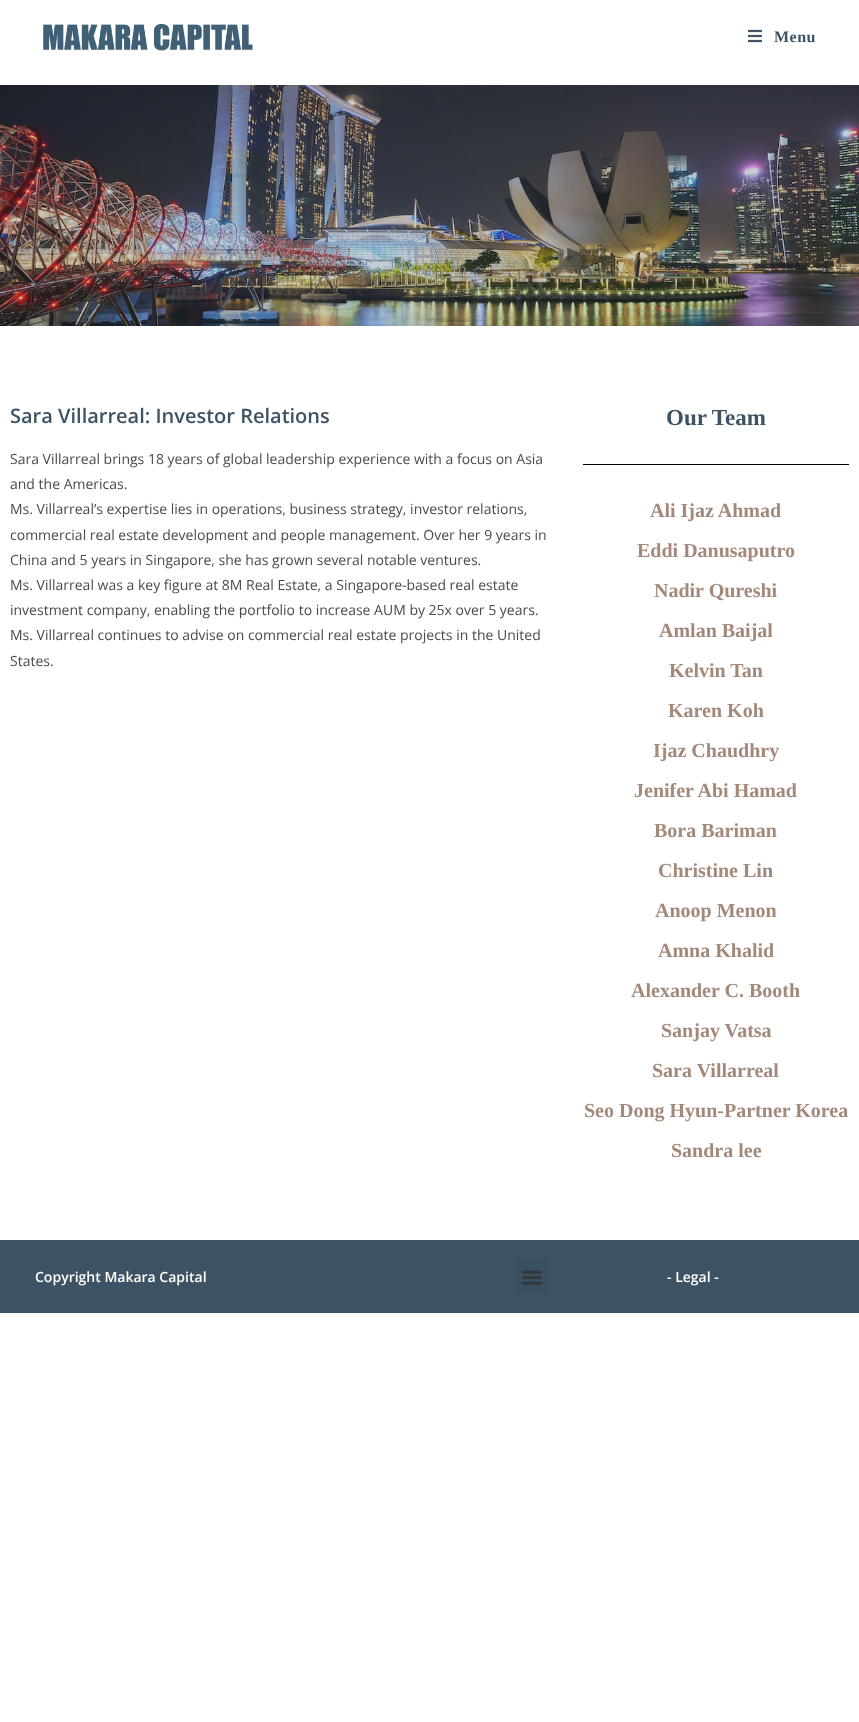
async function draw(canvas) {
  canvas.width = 859;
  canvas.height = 1722;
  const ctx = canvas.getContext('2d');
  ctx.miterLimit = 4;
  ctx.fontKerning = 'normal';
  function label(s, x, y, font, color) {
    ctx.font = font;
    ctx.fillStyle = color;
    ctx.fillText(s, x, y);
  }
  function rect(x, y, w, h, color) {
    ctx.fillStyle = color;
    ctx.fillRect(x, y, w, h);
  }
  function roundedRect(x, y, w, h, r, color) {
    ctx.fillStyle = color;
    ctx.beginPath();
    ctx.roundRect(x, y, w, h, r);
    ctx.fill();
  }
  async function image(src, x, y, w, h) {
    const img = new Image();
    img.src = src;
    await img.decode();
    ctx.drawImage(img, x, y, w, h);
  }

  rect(0, 0, 859, 1722, '#fff');
  await image('assets/img1.png', 43, 24, 210, 27);
  await image('assets/img2.png', 748, 29, 14, 14);
  ctx.letterSpacing = '0.5px';
  label('Menu', 774, 42, 'bold 16px Liberation Serif', '#3d5364');
  await image('assets/img3.png', 0, 85, 859, 241);
  ctx.letterSpacing = '0px';
  label('Sara Villarreal: Investor Relations', 10, 423, '600 20px Open Sans', '#3d5364');
  label('Sara Villarreal brings 18 years of global leadership experience with a focus on Asia', 10, 464, '14px Open Sans', '#4a4a4a');
  label('and the Americas.', 10, 489, '14px Open Sans', '#4a4a4a');
  label('Ms. Villarreal’s expertise lies in operations, business strategy, investor relations,', 10, 514, '14px Open Sans', '#4a4a4a');
  label('commercial real estate development and people management. Over her 9 years in', 10, 540, '14px Open Sans', '#4a4a4a');
  label('China and 5 years in Singapore, she has grown several notable ventures.', 10, 565, '14px Open Sans', '#4a4a4a');
  label('Ms. Villarreal was a key figure at 8M Real Estate, a Singapore-based real estate', 10, 590, '14px Open Sans', '#4a4a4a');
  label('investment company, enabling the portfolio to increase AUM by 25x over 5 years.', 10, 615, '14px Open Sans', '#4a4a4a');
  label('Ms. Villarreal continues to advise on commercial real estate projects in the United', 10, 640, '14px Open Sans', '#4a4a4a');
  label('States.', 10, 666, '14px Open Sans', '#4a4a4a');
  label('Our Team', 666, 425, 'bold 23px Liberation Serif', '#3d5364');
  rect(583, 464, 266, 1, '#000');
  label('Ali Ijaz Ahmad', 650, 517, 'bold 20px Liberation Serif', '#a3897a');
  label('Eddi Danusaputro', 637, 557, 'bold 20px Liberation Serif', '#a3897a');
  label('Nadir Qureshi', 654, 597, 'bold 20px Liberation Serif', '#a3897a');
  label('Amlan Baijal', 659, 637, 'bold 20px Liberation Serif', '#a3897a');
  label('Kelvin Tan', 669, 677, 'bold 20px Liberation Serif', '#a3897a');
  label('Karen Koh', 668, 717, 'bold 20px Liberation Serif', '#a3897a');
  label('Ijaz Chaudhry', 653, 757, 'bold 20px Liberation Serif', '#a3897a');
  label('Jenifer Abi Hamad', 634, 797, 'bold 20px Liberation Serif', '#a3897a');
  label('Bora Bariman', 654, 837, 'bold 20px Liberation Serif', '#a3897a');
  label('Christine Lin', 658, 877, 'bold 20px Liberation Serif', '#a3897a');
  label('Anoop Menon', 655, 917, 'bold 20px Liberation Serif', '#a3897a');
  label('Amna Khalid', 658, 957, 'bold 20px Liberation Serif', '#a3897a');
  label('Alexander C. Booth', 631, 997, 'bold 20px Liberation Serif', '#a3897a');
  label('Sanjay Vatsa', 661, 1037, 'bold 20px Liberation Serif', '#a3897a');
  label('Sara Villarreal', 652, 1077, 'bold 20px Liberation Serif', '#a3897a');
  label('Seo Dong Hyun-Partner Korea', 584, 1117, 'bold 20px Liberation Serif', '#a3897a');
  label('Sandra lee', 671, 1157, 'bold 20px Liberation Serif', '#a3897a');
  rect(0, 1240, 859, 73, '#3d5364');
  label('Copyright Makara Capital', 35, 1282, '600 14px Open Sans', '#fff');
  roundedRect(516, 1260, 33, 33, 3, '#3a4f5f');
  await image('assets/img4.png', 522, 1270, 20, 15);
  label('- Legal -', 667, 1282, '600 14px Open Sans', '#fff');
}

draw(document.querySelector('canvas'));
